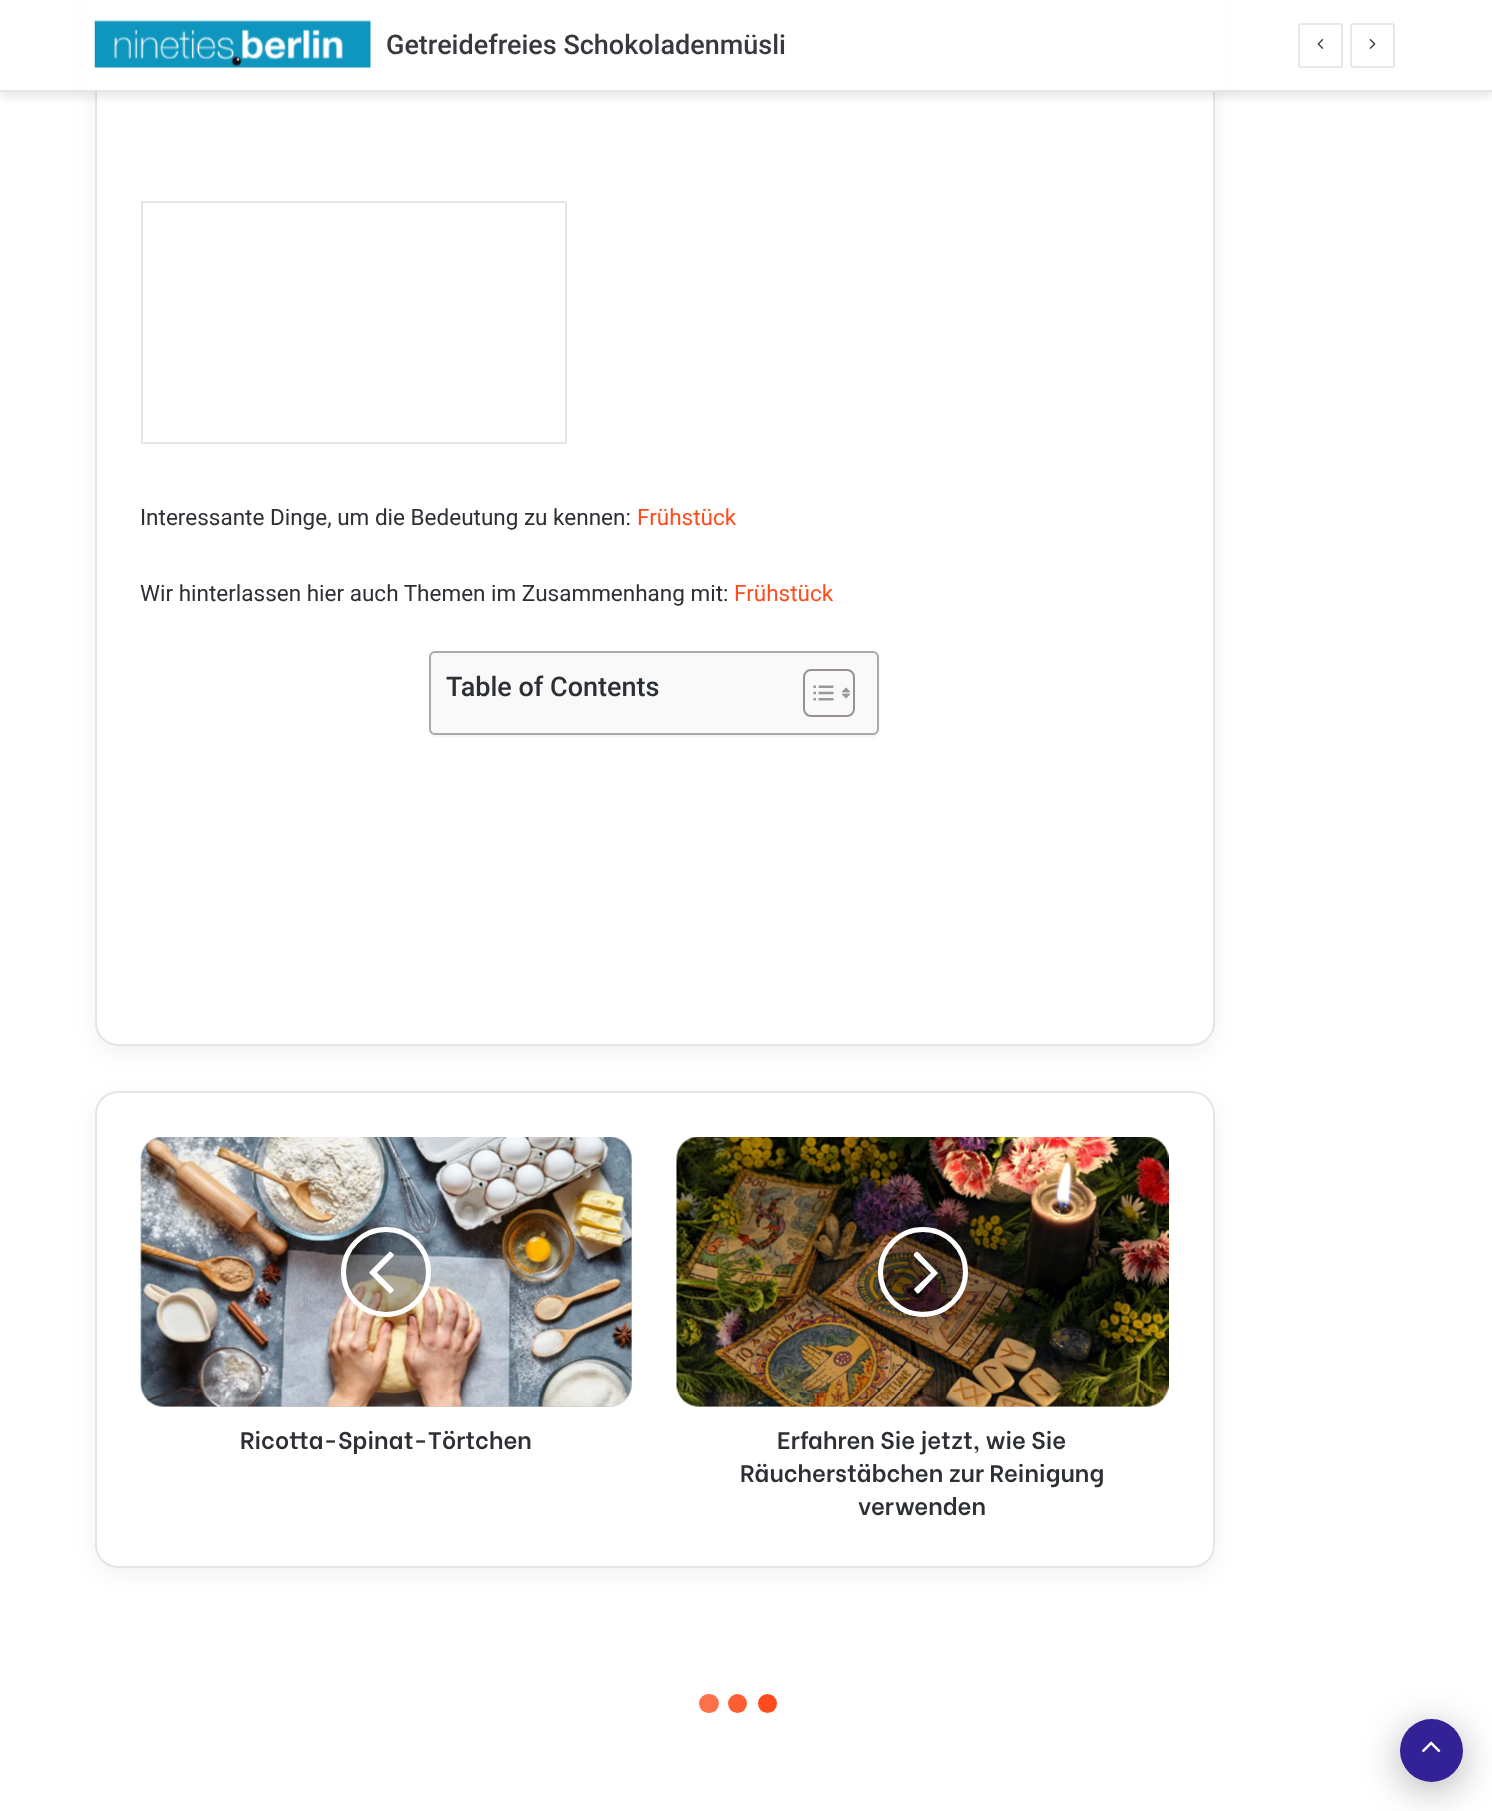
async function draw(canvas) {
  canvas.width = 1492;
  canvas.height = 1811;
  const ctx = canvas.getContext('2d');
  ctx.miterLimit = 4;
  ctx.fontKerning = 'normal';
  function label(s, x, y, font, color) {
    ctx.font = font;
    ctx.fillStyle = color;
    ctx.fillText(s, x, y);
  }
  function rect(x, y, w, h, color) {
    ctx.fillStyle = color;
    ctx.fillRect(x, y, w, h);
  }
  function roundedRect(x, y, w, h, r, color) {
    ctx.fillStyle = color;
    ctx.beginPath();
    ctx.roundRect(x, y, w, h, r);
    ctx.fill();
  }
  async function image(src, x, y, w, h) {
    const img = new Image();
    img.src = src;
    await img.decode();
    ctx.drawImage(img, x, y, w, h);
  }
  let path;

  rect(0, 0, 1492, 1811, '#fff');
  ctx.fillStyle = '#0000000d';
  ctx.filter = 'blur(11px)';
  ctx.beginPath();
  ctx.roundRect(95, -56, 1120, 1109, 23);
  ctx.fill();
  ctx.filter = 'none';
  roundedRect(95, -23, 1120, 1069, 23, '#fff');
  ctx.beginPath();
  ctx.roundRect(96, -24, 1118, 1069, 22);
  ctx.strokeStyle = '#0000001a';
  ctx.lineWidth = 2;
  ctx.stroke();
  ctx.save();
  ctx.beginPath();
  ctx.rect(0, 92, 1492, 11);
  ctx.clip();
  ctx.fillStyle = '#63636333';
  ctx.filter = 'blur(6px)';
  ctx.beginPath();
  ctx.rect(0, 3, 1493, 92);
  ctx.fill();
  ctx.filter = 'none';
  ctx.restore();
  rect(87, 0, 1136, 90, '#fffffff2');
  rect(0, 90, 1492, 2, '#e5e5e5');
  await image('assets/img1.png', 94, 20, 277, 48);
  label('Getreidefreies Schokoladenmüsli', 386, 54, '500 27px Roboto', '#37393e');
  ctx.beginPath();
  ctx.roundRect(1299, 24, 43, 43, 2);
  ctx.strokeStyle = '#e7e7e7';
  ctx.stroke();
  await image('assets/img2.png', 1317, 39, 7, 10);
  ctx.beginPath();
  ctx.roundRect(1351, 24, 43, 43, 2);
  ctx.stroke();
  await image('assets/img3.png', 1369, 39, 7, 10);
  ctx.strokeStyle = '#e6e6e6';
  ctx.strokeRect(142, 202, 424, 241);
  label('Interessante Dinge, um die Bedeutung zu kennen:', 140, 525, '22.5px Roboto', '#2c2f34');
  label('Frühstück', 637, 525, '22.5px Roboto', '#fe4c1c');
  label('Wir hinterlassen hier auch Themen im Zusammenhang mit:', 140, 601, '22.5px Roboto', '#2c2f34');
  label('Frühstück', 734, 601, '22.5px Roboto', '#fe4c1c');
  ctx.fillStyle = '#0000000d';
  ctx.filter = 'blur(1px)';
  ctx.beginPath();
  ctx.roundRect(429, 653, 450, 84, 6);
  ctx.fill();
  ctx.filter = 'none';
  ctx.fillStyle = '#f9f9f9';
  ctx.beginPath();
  ctx.roundRect(430, 652, 448, 82, 5);
  ctx.fill();
  ctx.strokeStyle = '#aaa';
  ctx.stroke();
  label('Table of Contents', 446, 696, '500 27px Roboto', '#2c2f34');
  ctx.beginPath();
  ctx.roundRect(804, 670, 50, 46, 7);
  ctx.strokeStyle = '#999191';
  ctx.stroke();
  await image('assets/img4.png', 813, 685, 21, 16);
  await image('assets/img5.png', 842, 687, 8, 12);
  ctx.fillStyle = '#0000000d';
  ctx.filter = 'blur(11px)';
  ctx.beginPath();
  ctx.roundRect(95, 1098, 1120, 477, 23);
  ctx.fill();
  ctx.filter = 'none';
  roundedRect(95, 1091, 1120, 477, 23, '#fff');
  ctx.beginPath();
  ctx.roundRect(96, 1092, 1118, 475, 22);
  ctx.strokeStyle = '#0000001a';
  ctx.stroke();
  roundedRect(141, 1137, 491, 270, 23, '#ccc');
  await image('assets/img6.png', 140, 1137, 492, 270);
  ctx.fillStyle = '#0000004d';
  ctx.beginPath();
  ctx.arc(386, 1272, 42.5, 0, 2 * Math.PI);
  ctx.fill();
  ctx.strokeStyle = '#fff';
  ctx.lineWidth = 5;
  ctx.stroke();
  await image('assets/img7.png', 369, 1251, 25, 43);
  label('Ricotta-Spinat-Törtchen', 240, 1449, '600 24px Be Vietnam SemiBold', '#2c2f34');
  roundedRect(677, 1137, 492, 270, 23, '#ccc');
  await image('assets/img8.png', 676, 1137, 493, 270);
  ctx.fillStyle = '#0000004d';
  ctx.beginPath();
  ctx.arc(923, 1272, 42.5, 0, 2 * Math.PI);
  ctx.fill();
  ctx.stroke();
  ctx.fillStyle = '#fff';
  path = new Path2D('M938 1273L922 1290C919 1293 918 1295 916 1292C915 1291 914 1290 914 1289L931 1273L914 1256C913 1254 916 1251 918 1252Z');
  ctx.fill(path);
  label('Erfahren Sie jetzt, wie Sie', 777, 1449, '600 24px Be Vietnam SemiBold', '#2c2f34');
  label('Räucherstäbchen zur Reinigung', 740, 1482, '600 24px Be Vietnam SemiBold', '#2c2f34');
  label('verwenden', 858, 1515, '600 24px Be Vietnam SemiBold', '#2c2f34');
  roundedRect(699, 1694, 20, 19, 9.5, '#fe7049');
  ctx.fillStyle = '#fe5e33';
  ctx.beginPath();
  ctx.arc(737.5, 1703.5, 9.5, 0, 2 * Math.PI);
  ctx.fill();
  ctx.fillStyle = '#fe4c1c';
  ctx.beginPath();
  ctx.arc(767.5, 1703.5, 9.5, 0, 2 * Math.PI);
  ctx.fill();
  ctx.fillStyle = '#0000004d';
  ctx.filter = 'blur(19px)';
  ctx.beginPath();
  ctx.roundRect(1400, 1727, 63, 63, 31.5);
  ctx.fill();
  ctx.filter = 'none';
  ctx.fillStyle = '#332295';
  ctx.beginPath();
  ctx.arc(1431.5, 1750.5, 31.5, 0, 2 * Math.PI);
  ctx.fill();
  await image('assets/img9.png', 1421, 1741, 20, 12);
}

draw(document.querySelector('canvas'));
